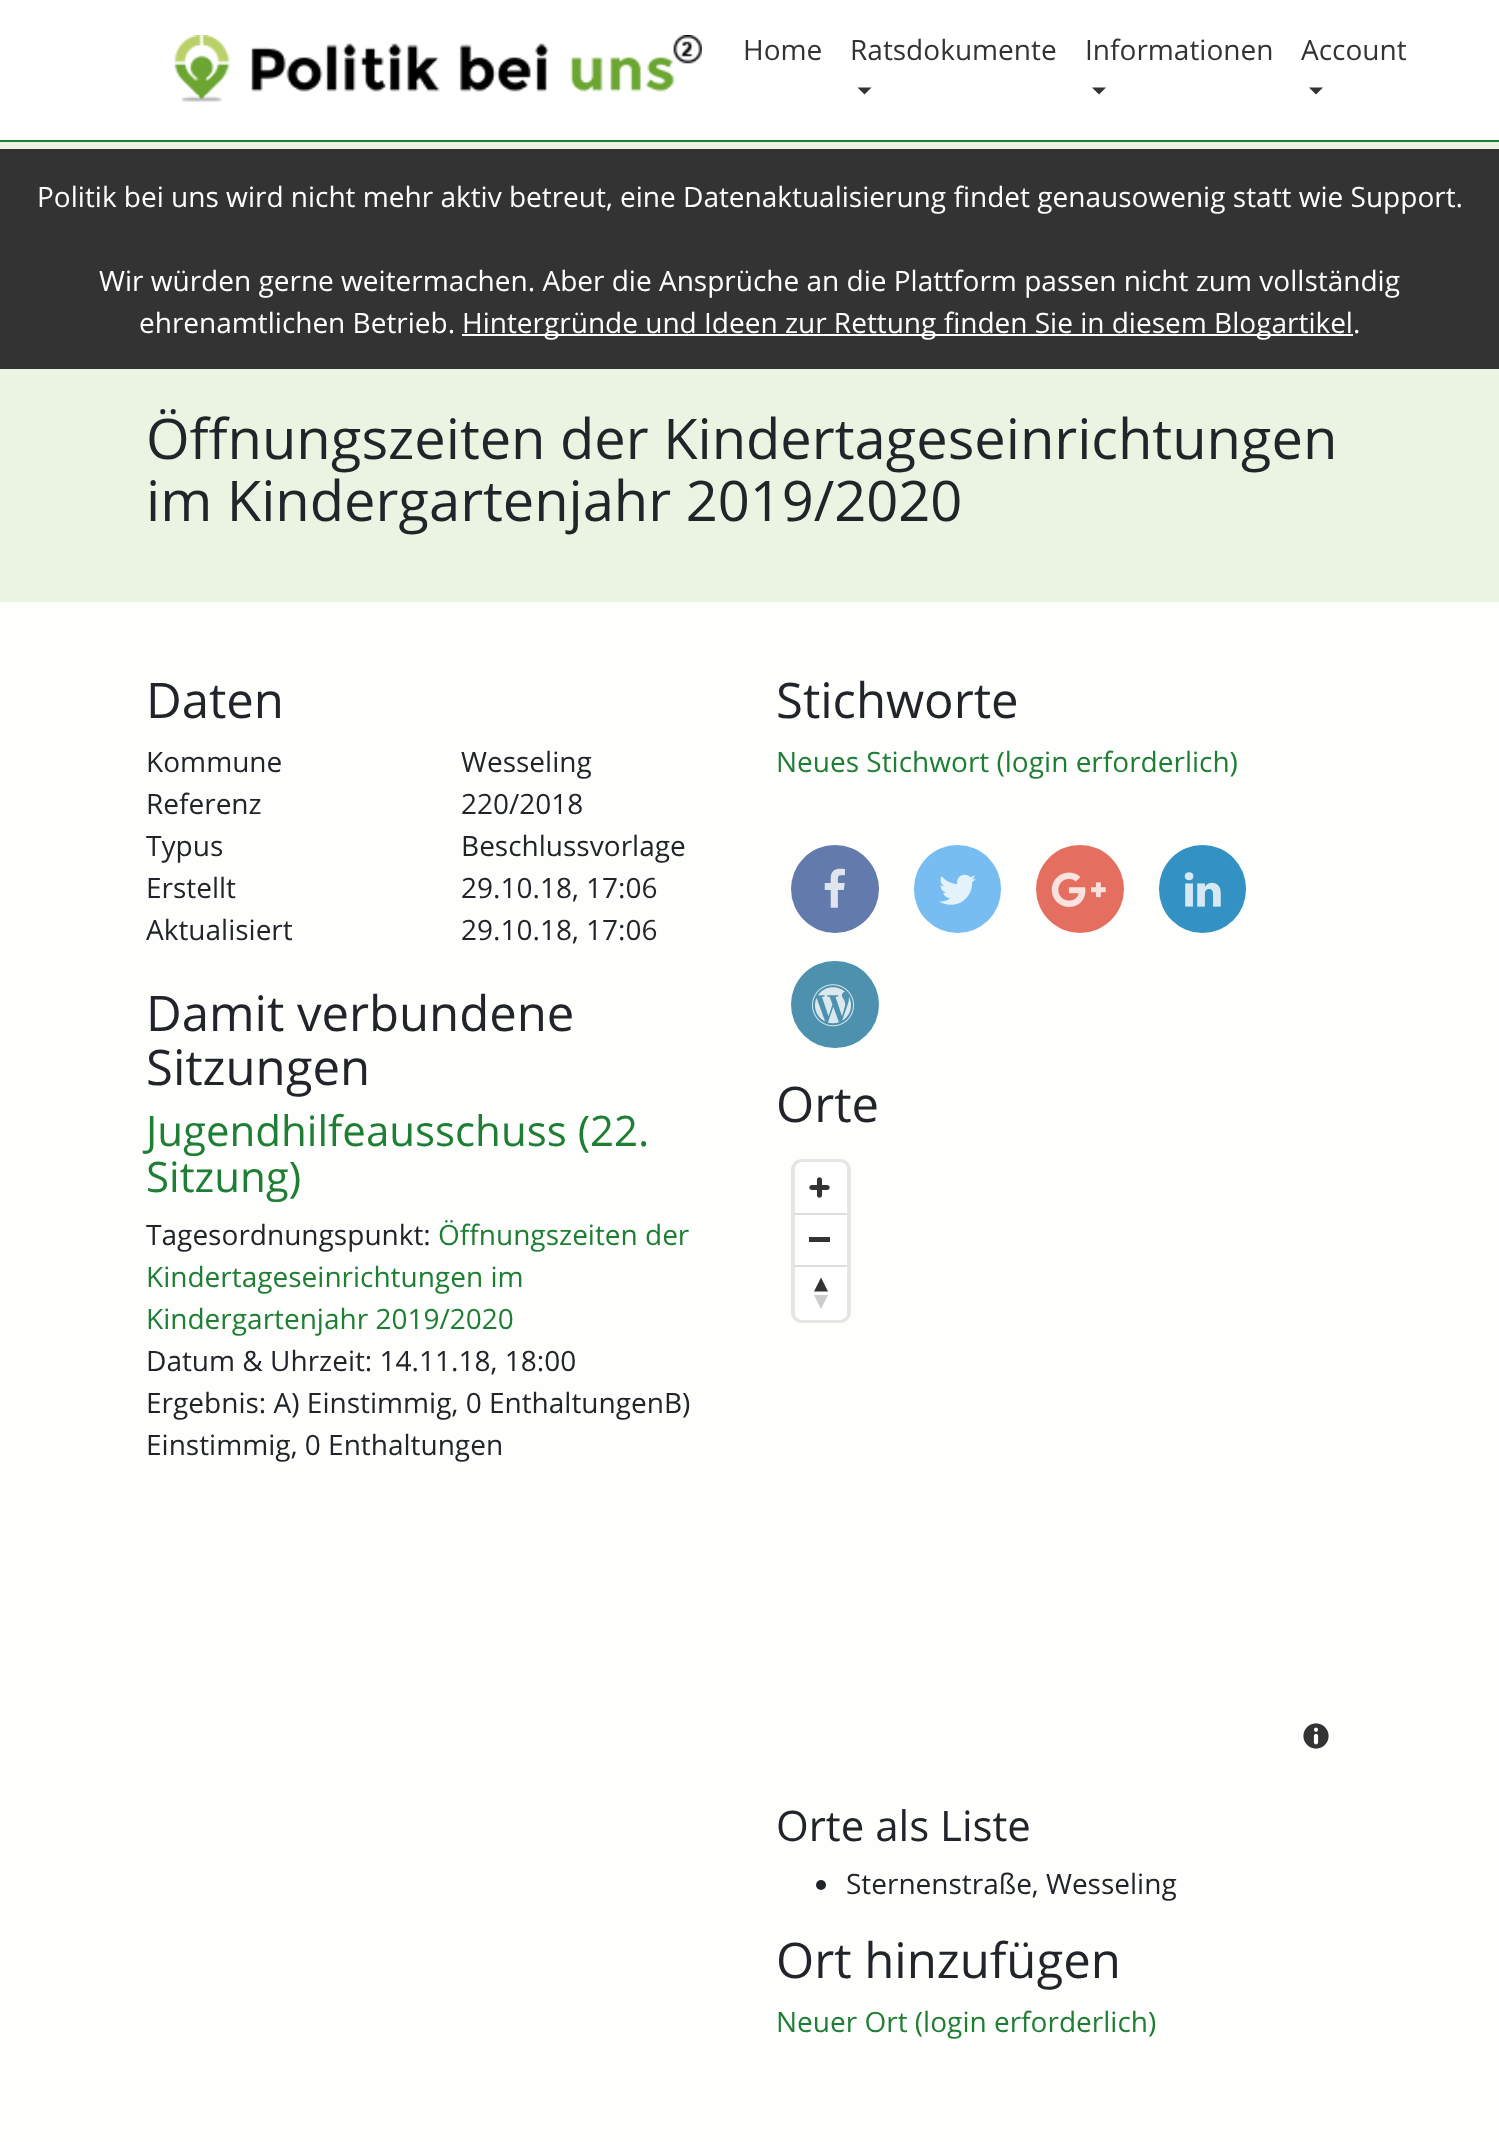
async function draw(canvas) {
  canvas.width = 1499;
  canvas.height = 2142;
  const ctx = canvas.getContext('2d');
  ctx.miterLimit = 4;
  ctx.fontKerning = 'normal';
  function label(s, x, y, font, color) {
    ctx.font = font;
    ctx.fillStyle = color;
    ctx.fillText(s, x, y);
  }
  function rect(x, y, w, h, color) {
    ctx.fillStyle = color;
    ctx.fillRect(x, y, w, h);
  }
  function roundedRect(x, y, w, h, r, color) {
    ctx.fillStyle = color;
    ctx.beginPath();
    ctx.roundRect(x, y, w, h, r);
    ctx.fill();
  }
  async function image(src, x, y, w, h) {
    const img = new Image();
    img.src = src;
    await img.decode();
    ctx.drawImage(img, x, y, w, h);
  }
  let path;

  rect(0, 0, 1499, 2142, '#ebf4e3');
  rect(0, 0, 1499, 140, '#fff');
  rect(0, 140, 1499, 2, '#1e7e34');
  await image('assets/img1.png', 174, 35, 528, 67);
  label('Home', 743, 60, '28px Open Sans', '#333');
  label('Ratsdokumente', 850, 60, '28px Open Sans', '#333');
  path = new Path2D('M857.5 87.5H871.5L864.5 94.5Z');
  ctx.fill(path);
  label('Informationen', 1085, 60, '28px Open Sans', '#333');
  path = new Path2D('M1092 87.5H1106L1099 94.5Z');
  ctx.fill(path);
  label('Account', 1301, 60, '28px Open Sans', '#333');
  path = new Path2D('M1309 87.5H1323L1316 94.5Z');
  ctx.fill(path);
  rect(0, 149, 1499, 220, '#333');
  label('Politik bei uns wird nicht mehr aktiv betreut, eine Datenaktualisierung findet genausowenig statt wie Support.', 37, 207, '28px Open Sans', '#fff');
  label('Wir würden gerne weitermachen. Aber die Ansprüche an die Plattform passen nicht zum vollständig', 99, 291, '28px Open Sans', '#fff');
  label('ehrenamtlichen Betrieb.', 139, 333, '28px Open Sans', '#fff');
  rect(462, 334, 891, 2, '#fff');
  label('Hintergründe und Ideen zur Rettung finden Sie in diesem Blogartikel.', 462, 333, '28px Open Sans', '#fff');
  label('Öffnungszeiten der Kindertageseinrichtungen', 146, 459, '56px Open Sans', '#212529');
  label('im Kindergartenjahr 2019/2020', 146, 521, '56px Open Sans', '#212529');
  rect(0, 602, 1499, 1540, '#fefffd');
  label('Daten', 146, 718, '49px Open Sans', '#212529');
  label('Kommune', 146, 772, '28px Open Sans', '#212529');
  label('Wesseling', 461, 772, '28px Open Sans', '#212529');
  label('Referenz', 146, 814, '28px Open Sans', '#212529');
  label('220/2018', 461, 814, '28px Open Sans', '#212529');
  label('Typus', 146, 856, '28px Open Sans', '#212529');
  label('Beschlussvorlage', 461, 856, '28px Open Sans', '#212529');
  label('Erstellt', 146, 898, '28px Open Sans', '#212529');
  label('29.10.18, 17:06', 461, 898, '28px Open Sans', '#212529');
  label('Aktualisiert', 146, 940, '28px Open Sans', '#212529');
  label('29.10.18, 17:06', 461, 940, '28px Open Sans', '#212529');
  label('Damit verbundene', 146, 1031, '49px Open Sans', '#212529');
  label('Sitzungen', 146, 1085, '49px Open Sans', '#212529');
  label('Jugendhilfeausschuss (22.', 146, 1146, '42px Open Sans', '#1e7e34');
  label('Sitzung)', 146, 1192, '42px Open Sans', '#1e7e34');
  label('Tagesordnungspunkt:', 146, 1245, '28px Open Sans', '#212529');
  label('Öffnungszeiten der', 438, 1245, '28px Open Sans', '#1e7e34');
  label('Kindertageseinrichtungen im', 146, 1287, '28px Open Sans', '#1e7e34');
  label('Kindergartenjahr 2019/2020', 146, 1329, '28px Open Sans', '#1e7e34');
  label('Datum & Uhrzeit: 14.11.18, 18:00', 146, 1371, '28px Open Sans', '#212529');
  label('Ergebnis: A) Einstimmig, 0 EnthaltungenB)', 146, 1413, '28px Open Sans', '#212529');
  label('Einstimmig, 0 Enthaltungen', 146, 1455, '28px Open Sans', '#212529');
  label('Stichworte', 776, 718, '49px Open Sans', '#212529');
  label('Neues Stichwort (login erforderlich)', 776, 772, '28px Open Sans', '#1e7e34');
  ctx.fillStyle = '#627aac';
  ctx.beginPath();
  ctx.arc(835, 889, 44, 0, 2 * Math.PI);
  ctx.fill();
  await image('assets/img2.png', 824, 868, 21, 40);
  roundedRect(914, 845, 87, 88, 43.5, '#77bdf1');
  await image('assets/img3.png', 939, 874, 37, 31);
  ctx.fillStyle = '#e46f60';
  ctx.beginPath();
  ctx.arc(1080, 889, 44, 0, 2 * Math.PI);
  ctx.fill();
  await image('assets/img4.png', 1051, 872, 55, 35);
  roundedRect(1159, 845, 87, 88, 43.5, '#3392c3');
  await image('assets/img5.png', 1184, 872, 37, 35);
  roundedRect(791, 961, 88, 87, 43.5, '#4d91af');
  await image('assets/img6.png', 812, 984, 42, 43);
  label('Orte', 776, 1122, '49px Open Sans', '#212529');
  ctx.beginPath();
  ctx.roundRect(793, 1161, 56, 160, 9);
  ctx.strokeStyle = '#e5e6e4';
  ctx.lineWidth = 4;
  ctx.stroke();
  roundedRect(795, 1162, 52, 158, 7, '#fff');
  await image('assets/img7.png', 809, 1177, 21, 21);
  rect(795, 1213, 52, 2, '#ddd');
  rect(809, 1237, 21, 5, '#333');
  rect(795, 1265, 52, 2, '#ddd');
  ctx.fillStyle = '#333';
  path = new Path2D('M814 1291.5L821 1277.5L828 1291.5Z');
  ctx.fill(path);
  ctx.fillStyle = '#ccc';
  path = new Path2D('M814 1295L821 1309L828 1295Z');
  ctx.fill(path);
  await image('assets/img8.png', 1303, 1723, 26, 26);
  label('Orte als Liste', 776, 1841, '42px Open Sans', '#212529');
  ctx.beginPath();
  ctx.arc(821, 1885, 5, 0, 2 * Math.PI);
  ctx.fill();
  label('Sternenstraße, Wesseling', 846, 1894, '28px Open Sans', '#212529');
  label('Ort hinzufügen', 776, 1978, '49px Open Sans', '#212529');
  label('Neuer Ort (login erforderlich)', 776, 2032, '28px Open Sans', '#1e7e34');
}

draw(document.querySelector('canvas'));
